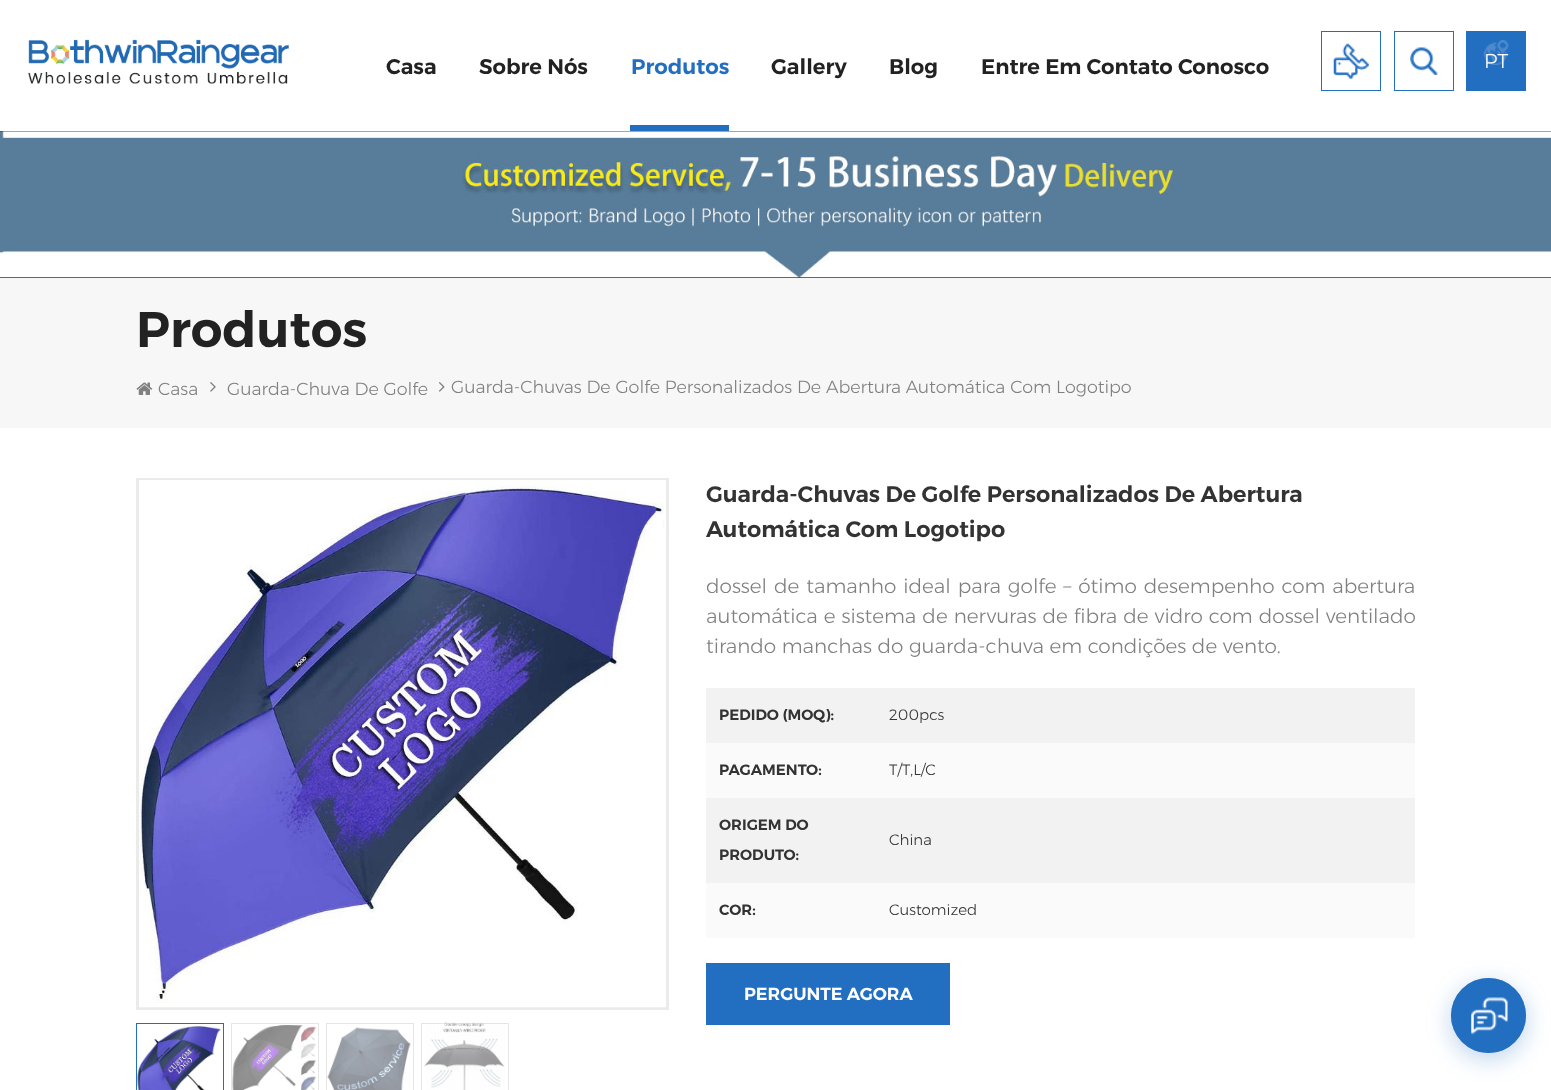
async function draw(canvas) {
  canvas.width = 1551;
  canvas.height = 1090;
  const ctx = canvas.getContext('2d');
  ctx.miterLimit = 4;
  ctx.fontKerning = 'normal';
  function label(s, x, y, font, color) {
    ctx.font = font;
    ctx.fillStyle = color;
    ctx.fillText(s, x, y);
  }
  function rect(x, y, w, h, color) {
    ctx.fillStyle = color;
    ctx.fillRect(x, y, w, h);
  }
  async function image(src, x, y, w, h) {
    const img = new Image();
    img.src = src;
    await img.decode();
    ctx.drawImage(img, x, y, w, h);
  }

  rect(0, 0, 1551, 1090, '#fff');
  await image('assets/img1.png', 28, 39, 261, 45);
  label('Casa', 386, 74, '600 21.25px Montserrat', '#222');
  label('Sobre Nós', 479, 74, '600 21.25px Montserrat', '#222');
  label('Produtos', 631, 74, '600 21.25px Montserrat', '#226ec1');
  rect(630, 125, 99, 6, '#226ec1');
  label('Gallery', 771, 74, '600 21.25px Montserrat', '#222');
  label('Blog', 889, 74, '600 21.25px Montserrat', '#222');
  label('Entre Em Contato Conosco', 981, 74, '600 21.25px Montserrat', '#222');
  ctx.strokeStyle = '#226ec1';
  ctx.strokeRect(1321.5, 31.5, 59, 59);
  await image('assets/img2.png', 1333, 43, 36, 36);
  ctx.strokeRect(1394.5, 31.5, 59, 59);
  await image('assets/img3.png', 1410, 47, 28, 28);
  rect(1466, 31, 60, 60, '#226ec1');
  await image('assets/img4.png', 1483, 40, 26, 25);
  label('PT', 1484, 68, '300 20px Montserrat', '#fff');
  rect(0, 131, 1551, 147, '#333');
  await image('assets/img5.png', 0, 131, 1551, 147);
  rect(0, 278, 1551, 150, '#f7f7f7');
  label('Produtos', 136, 347, '600 50px Montserrat', '#222');
  await image('assets/img6.png', 136, 382, 17, 13);
  label('Casa', 158, 395, '300 17.5px Montserrat', '#808080');
  await image('assets/img7.png', 210, 382, 6, 10);
  label('Guarda-Chuva De Golfe', 227, 395, '300 17.5px Montserrat', '#808080');
  await image('assets/img8.png', 439, 382, 6, 10);
  label('Guarda-Chuvas De Golfe Personalizados De Abertura Automática Com Logotipo', 451, 393, '300 17.5px Montserrat', '#808080');
  ctx.strokeStyle = '#ebebeb';
  ctx.lineWidth = 3;
  ctx.strokeRect(137.5, 479.5, 530, 529);
  await image('assets/img9.png', 139, 480, 527, 528);
  await image('assets/img10.png', 137, 1026, 85, 64);
  ctx.strokeStyle = '#226ec1';
  ctx.lineWidth = 1;
  ctx.strokeRect(136.5, 1023.5, 87, 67);
  await image('assets/img11.png', 232, 1025, 85, 65);
  ctx.strokeStyle = '#e6e6e6';
  ctx.strokeRect(231.5, 1023.5, 87, 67);
  await image('assets/img12.png', 327, 1027, 84, 63);
  ctx.strokeRect(326.5, 1023.5, 87, 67);
  await image('assets/img13.png', 424, 1022, 81, 68);
  ctx.strokeStyle = '#cccccc80';
  ctx.strokeRect(421.5, 1023.5, 87, 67);
  label('Guarda-Chuvas De Golfe Personalizados De Abertura', 706, 502, '600 22.5px Montserrat', '#333');
  label('Automática Com Logotipo', 706, 537, '600 22.5px Montserrat', '#333');
  ctx.wordSpacing = '1.4px';
  label('dossel de tamanho ideal para golfe – ótimo desempenho com abertura', 706, 593, '300 20px Montserrat', '#808080');
  ctx.wordSpacing = '0.5px';
  label('automática e sistema de nervuras de fibra de vidro com dossel ventilado', 706, 623, '300 20px Montserrat', '#808080');
  ctx.wordSpacing = '0px';
  label('tirando manchas do guarda-chuva em condições de vento.', 706, 653, '300 20px Montserrat', '#808080');
  rect(706, 688, 709, 55, '#f2f2f2');
  label('PEDIDO (MOQ):', 719, 720, '600 15px Montserrat', '#333');
  label('200pcs', 889, 720, '300 15px Montserrat', '#333');
  rect(706, 743, 709, 55, '#fafafa');
  label('PAGAMENTO:', 719, 775, '600 15px Montserrat', '#333');
  label('T/T,L/C', 889, 775, '300 15px Montserrat', '#333');
  rect(706, 798, 709, 85, '#f2f2f2');
  label('ORIGEM DO', 719, 830, '600 15px Montserrat', '#333');
  label('PRODUTO:', 719, 860, '600 15px Montserrat', '#333');
  label('China', 889, 845, '300 15px Montserrat', '#333');
  rect(706, 883, 709, 55, '#fafafa');
  label('COR:', 719, 915, '600 15px Montserrat', '#333');
  label('Customized', 889, 915, '300 15px Montserrat', '#333');
  rect(706, 963, 244, 62, '#226ec1');
  label('PERGUNTE AGORA', 744, 1000, '600 17.5px Montserrat', '#fff');
  ctx.fillStyle = '#226ec14d';
  ctx.filter = 'blur(12.5px)';
  ctx.beginPath();
  ctx.roundRect(1451, 984, 75, 75, 37.5);
  ctx.fill();
  ctx.filter = 'none';
  ctx.fillStyle = '#226ec1';
  ctx.beginPath();
  ctx.arc(1488.5, 1015.5, 37.5, 0, 2 * Math.PI);
  ctx.fill();
  ctx.fillStyle = '#226ec140';
  ctx.beginPath();
  ctx.arc(1488.5, 1015.5, 37.5, 0, 2 * Math.PI);
  ctx.fill();
  ctx.beginPath();
  ctx.arc(1488.5, 1015.5, 37.5, 0, 2 * Math.PI);
  ctx.fill();
  ctx.beginPath();
  ctx.arc(1488.5, 1015.5, 37.5, 0, 2 * Math.PI);
  ctx.fill();
  await image('assets/img14.png', 1471, 997, 37, 38);
}

draw(document.querySelector('canvas'));
